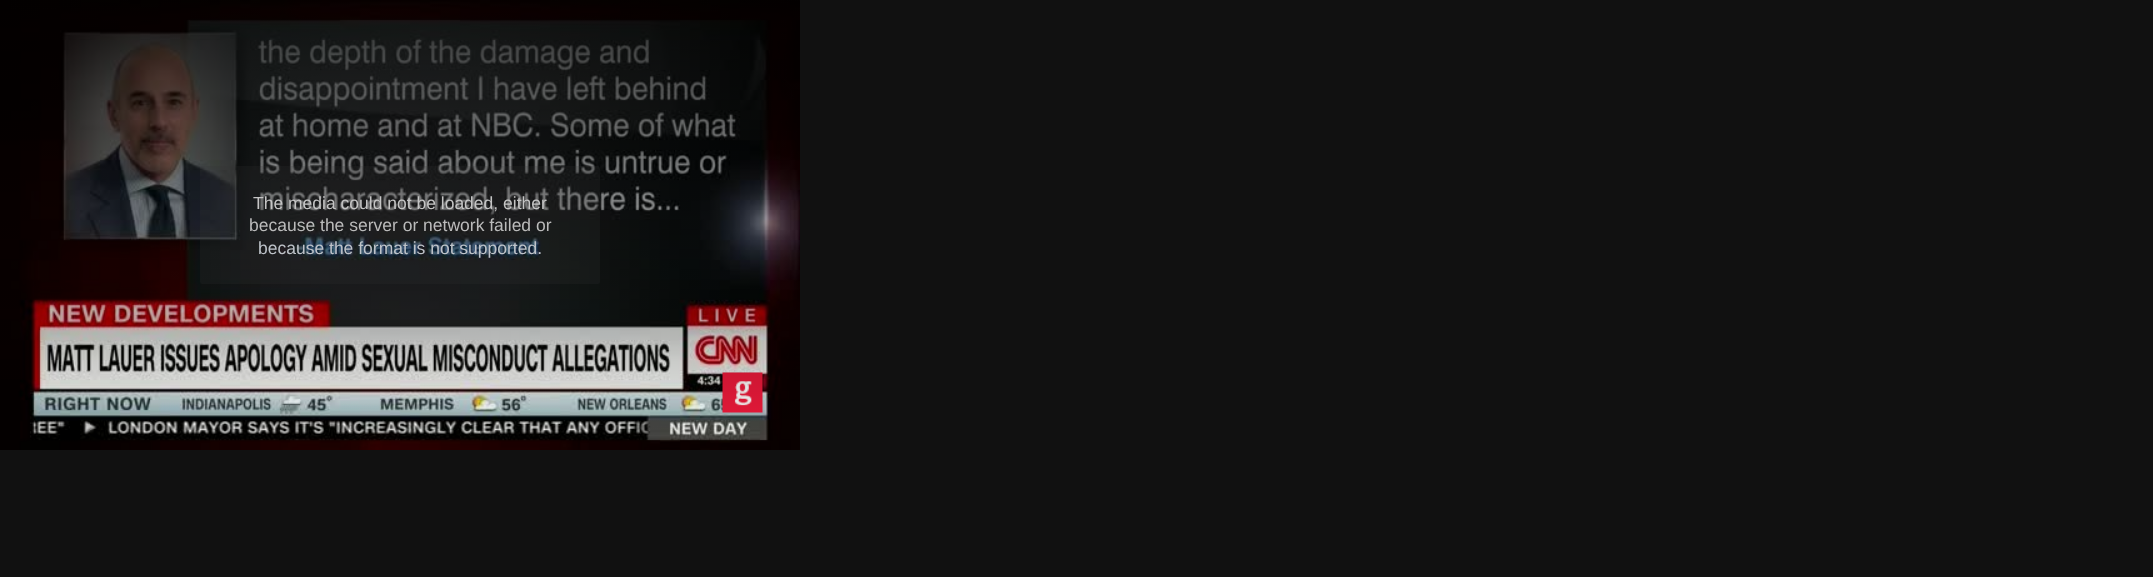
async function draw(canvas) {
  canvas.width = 2153;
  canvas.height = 577;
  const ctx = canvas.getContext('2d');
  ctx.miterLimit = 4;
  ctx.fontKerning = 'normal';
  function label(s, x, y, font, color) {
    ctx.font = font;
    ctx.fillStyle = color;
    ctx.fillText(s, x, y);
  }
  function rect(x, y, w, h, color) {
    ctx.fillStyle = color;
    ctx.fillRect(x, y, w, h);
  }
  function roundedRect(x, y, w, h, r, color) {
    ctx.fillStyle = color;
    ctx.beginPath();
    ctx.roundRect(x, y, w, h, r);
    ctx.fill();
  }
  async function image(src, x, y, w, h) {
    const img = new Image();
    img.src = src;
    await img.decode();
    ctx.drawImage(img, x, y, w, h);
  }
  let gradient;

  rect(0, 0, 2153, 577, '#111');
  await image('assets/img1.png', 0, 0, 800, 450);
  await image('assets/img2.png', 722, 372, 41, 41);
  gradient = ctx.createLinearGradient(400, 0, 400, 450);
  gradient.addColorStop(0, '#000000cc');
  gradient.addColorStop(1, '#00000000');
  ctx.fillStyle = gradient;
  ctx.fillRect(0, 0, 800, 435);
  roundedRect(200, 166, 400, 118, 2.5, '#32323236');
  label('The media could not be loaded, either', 253, 209, '17.5px Liberation Sans', '#c5c5c5');
  label('because the server or network failed or', 249, 231, '17.5px Liberation Sans', '#bbb');
  label('because the format is not supported.', 258, 254, '17.5px Liberation Sans', '#bec3c9');
}

draw(document.querySelector('canvas'));
